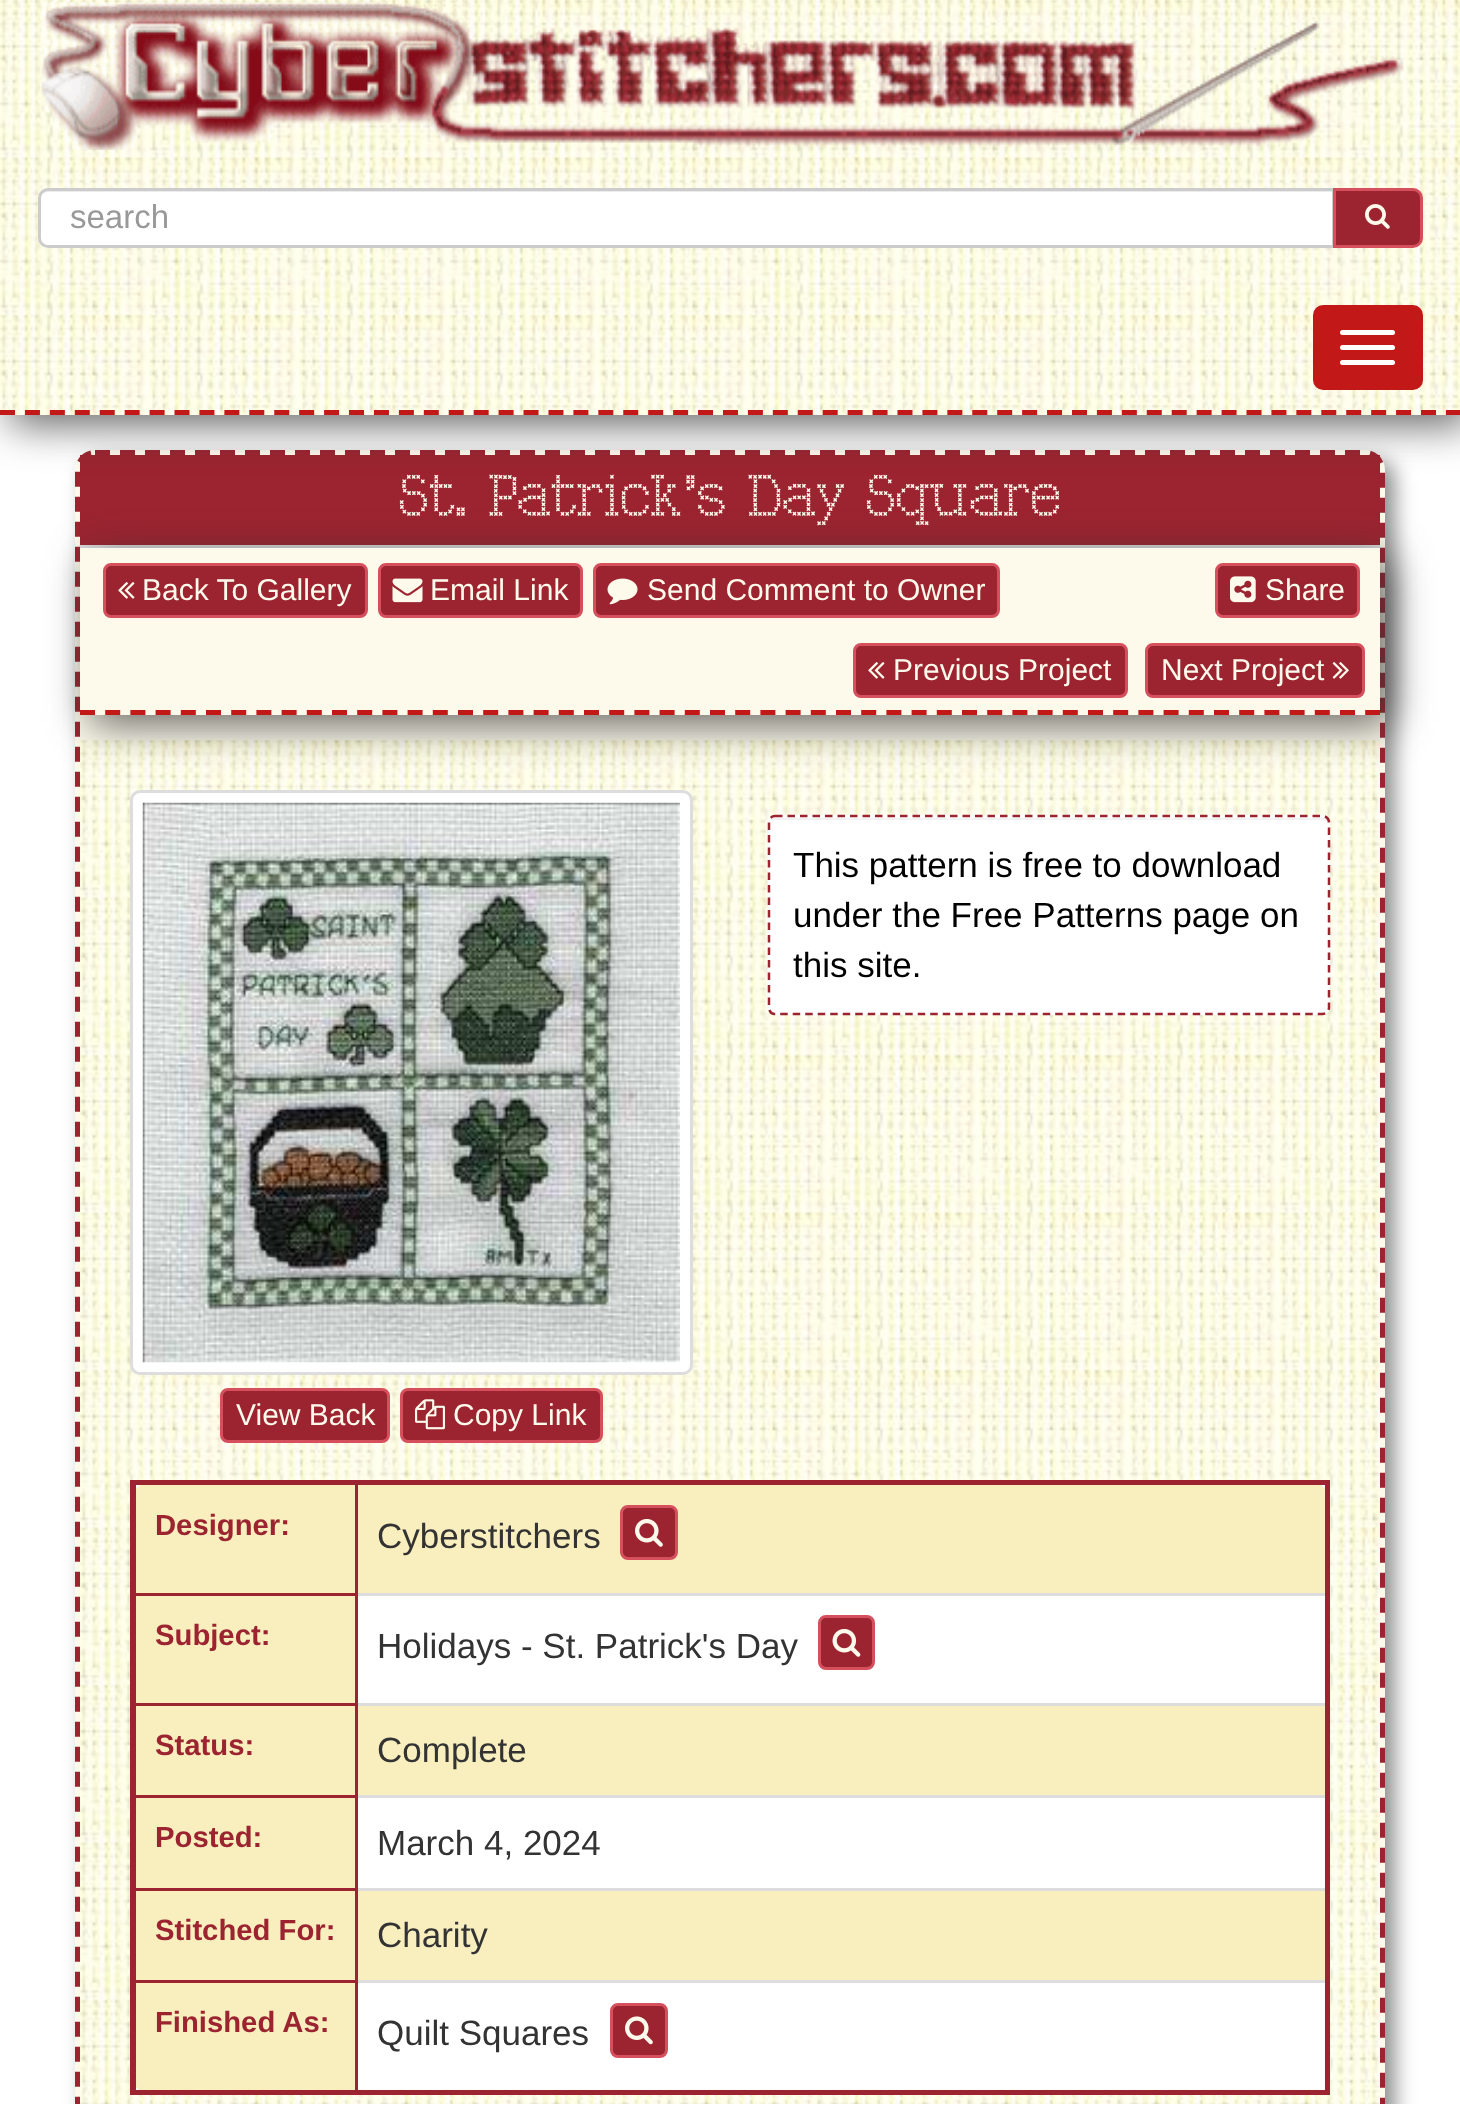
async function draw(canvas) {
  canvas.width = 1460;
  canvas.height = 2104;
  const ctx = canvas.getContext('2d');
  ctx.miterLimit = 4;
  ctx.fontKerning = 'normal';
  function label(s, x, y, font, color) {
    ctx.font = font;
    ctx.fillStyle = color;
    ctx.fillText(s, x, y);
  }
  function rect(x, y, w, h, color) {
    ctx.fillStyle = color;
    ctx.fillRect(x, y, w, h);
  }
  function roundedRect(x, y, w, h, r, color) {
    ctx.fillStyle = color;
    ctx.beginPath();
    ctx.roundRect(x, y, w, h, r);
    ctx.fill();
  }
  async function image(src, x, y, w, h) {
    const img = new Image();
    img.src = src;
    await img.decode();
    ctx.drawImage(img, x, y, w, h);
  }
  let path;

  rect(0, 0, 1460, 2104, '#fff');
  ctx.fillStyle = '#3332328c';
  ctx.filter = 'blur(10px)';
  ctx.beginPath();
  ctx.roundRect(85, 460, 1310, 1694, 20);
  ctx.fill();
  ctx.filter = 'none';
  roundedRect(75, 450, 1310, 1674, 20, '#fdfaec');
  path = new Path2D('M95 452.5H1365C1374.5 452.5 1382.5 460.5 1382.5 470V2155C1382.5 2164.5 1374.5 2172.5 1365 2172.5H95C85.5 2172.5 77.5 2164.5 77.5 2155V470C77.5 460.5 85.5 452.5 95 452.5Z');
  ctx.strokeStyle = '#9b2430';
  ctx.lineWidth = 5;
  ctx.setLineDash([15, 10]);
  ctx.stroke(path);
  rect(80, 455, 1300, 90, '#9b2430');
  ctx.fillStyle = '#333232bf';
  ctx.filter = 'blur(21px)';
  ctx.beginPath();
  ctx.rect(10, 10, 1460, 415);
  ctx.fill();
  ctx.filter = 'none';
  await image('assets/img1.png', 0, 0, 1460, 415);
  path = new Path2D('M0 412.5H1460');
  ctx.strokeStyle = '#c21818';
  ctx.setLineDash([15, 9.93]);
  ctx.stroke(path);
  await image('assets/img2.png', 41, 0, 1363, 150);
  ctx.fillStyle = '#fff';
  ctx.beginPath();
  ctx.roundRect(38, 188, 1297, 60, [10, 0, 0, 10]);
  ctx.fill();
  ctx.fillStyle = '#ececec';
  path = new Path2D('M48 192H1332V245H1333V190H48C44 190 40 194 40 198V200C40 196 43 192 48 192Z');
  ctx.fill(path);
  ctx.beginPath();
  ctx.roundRect(39.5, 189.5, 1294, 57, [8.5, 0, 0, 8.5]);
  ctx.strokeStyle = '#ccc';
  ctx.lineWidth = 3;
  ctx.setLineDash([]);
  ctx.stroke();
  label('search', 70, 228, '33px Liberation Sans', '#999');
  ctx.fillStyle = '#9b2430';
  ctx.beginPath();
  ctx.roundRect(1334.5, 189.5, 87, 57, [0, 8.5, 8.5, 0]);
  ctx.fill();
  ctx.strokeStyle = '#d64f5d';
  ctx.stroke();
  await image('assets/img3.png', 1365, 204, 25, 25);
  roundedRect(1313, 305, 110, 85, 10, '#c21818');
  roundedRect(1340, 330, 55, 5, 2.5, '#fff');
  roundedRect(1340, 345, 55, 5, 2.5, '#fff');
  roundedRect(1340, 360, 55, 5, 2.5, '#fff');
  rect(80, 545, 1300, 3, '#ddd');
  label('St. Patrick\'s Day Square', 399, 516, '100 60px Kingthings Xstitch', '#fdfaec');
  await image('assets/img9.png', 80, 740, 1300, 1364);
  ctx.save();
  path = new Path2D('M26 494H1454V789H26ZM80 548H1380V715H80Z');
  ctx.clip(path, 'evenodd');
  ctx.fillStyle = '#333232bf';
  ctx.filter = 'blur(21px)';
  ctx.beginPath();
  ctx.rect(90, 558, 1300, 167);
  ctx.fill();
  ctx.filter = 'none';
  ctx.restore();
  path = new Path2D('M80 712.5H1380');
  ctx.strokeStyle = '#c21818';
  ctx.lineWidth = 5;
  ctx.setLineDash([15, 10.2]);
  ctx.stroke(path);
  ctx.fillStyle = '#9b2430';
  ctx.beginPath();
  ctx.roundRect(104.5, 564.5, 262, 52, 6.5);
  ctx.fill();
  ctx.strokeStyle = '#d64f5d';
  ctx.lineWidth = 3;
  ctx.setLineDash([]);
  ctx.stroke();
  await image('assets/img4.png', 118, 582, 17, 17);
  label('Back To Gallery', 142, 600, '30px Liberation Sans', '#fdfaec');
  ctx.fillStyle = '#9b2430';
  ctx.beginPath();
  ctx.roundRect(379.5, 564.5, 202, 52, 6.5);
  ctx.fill();
  ctx.stroke();
  await image('assets/img5.png', 392, 578, 31, 25);
  label('Email Link', 430, 600, '30px Liberation Sans', '#fdfaec');
  ctx.fillStyle = '#9b2430';
  ctx.beginPath();
  ctx.roundRect(594.5, 564.5, 404, 52, 6.5);
  ctx.fill();
  ctx.stroke();
  await image('assets/img6.png', 607, 578, 31, 27);
  label('Send Comment to Owner', 647, 600, '30px Liberation Sans', '#fdfaec');
  ctx.fillStyle = '#9b2430';
  ctx.beginPath();
  ctx.roundRect(1216.5, 564.5, 142, 52, 6.5);
  ctx.fill();
  ctx.stroke();
  await image('assets/img7.png', 1230, 576, 26, 27);
  label('Share', 1265, 600, '30px Liberation Sans', '#fdfaec');
  ctx.fillStyle = '#9b2430';
  ctx.beginPath();
  ctx.roundRect(854.5, 644.5, 272, 52, 6.5);
  ctx.fill();
  ctx.stroke();
  await image('assets/img4.png', 868, 662, 17, 17);
  label('Previous Project', 893, 680, '30px Liberation Sans', '#fdfaec');
  ctx.fillStyle = '#9b2430';
  ctx.beginPath();
  ctx.roundRect(1146.5, 644.5, 217, 52, 6.5);
  ctx.fill();
  ctx.stroke();
  label('Next Project', 1161, 680, '30px Liberation Sans', '#fdfaec');
  await image('assets/img8.png', 1332, 662, 17, 17);
  roundedRect(768, 815, 562, 200, 8, '#fff');
  ctx.fillStyle = '#f2f2f2';
  path = new Path2D('M775 820H1322C1325 820 1328 822 1328 825V823C1328 820 1326 818 1323 818H775C772 818 770 820 770 823V825C770 822 772 820 775 820Z');
  ctx.fill(path);
  path = new Path2D('M775 816H1322.5C1326 816 1329 819 1329 822.5V1007.5C1329 1011 1326 1014 1322.5 1014H775C771.5 1014 769 1011 769 1007.5V822.5C769 819 771.5 816 775 816Z');
  ctx.strokeStyle = '#9b2430';
  ctx.lineWidth = 2.5;
  ctx.setLineDash([7.5, 5]);
  ctx.stroke(path);
  label('This pattern is free to download', 793, 877, '35px Liberation Sans', '#000');
  label('under the Free Patterns page on', 793, 927, '35px Liberation Sans', '#000');
  label('this site.', 793, 977, '35px Liberation Sans', '#000');
  ctx.fillStyle = '#fff';
  ctx.beginPath();
  ctx.roundRect(131.5, 791.5, 560, 582, 8.5);
  ctx.fill();
  ctx.strokeStyle = '#ddd';
  ctx.lineWidth = 3;
  ctx.setLineDash([]);
  ctx.stroke();
  await image('assets/img10.png', 142, 802, 538, 561);
  ctx.fillStyle = '#9b2430';
  ctx.beginPath();
  ctx.roundRect(221.5, 1389.5, 167, 52, 6.5);
  ctx.fill();
  ctx.strokeStyle = '#d64f5d';
  ctx.stroke();
  label('View Back', 236, 1425, '30px Liberation Sans', '#fdfaec');
  ctx.fillStyle = '#9b2430';
  ctx.beginPath();
  ctx.roundRect(401.5, 1389.5, 200, 52, 6.5);
  ctx.fill();
  ctx.stroke();
  await image('assets/img11.png', 415, 1399, 30, 31);
  label('Copy Link', 453, 1425, '30px Liberation Sans', '#fdfaec');
  rect(136, 1596, 1189, 494, '#fff');
  rect(136, 1485, 1189, 4, '#f9f9f9');
  ctx.fillStyle = '#f8eebe';
  ctx.beginPath();
  ctx.roundRect(133, 1483, 222, 110, [15, 0, 0, 0]);
  ctx.fill();
  ctx.beginPath();
  ctx.roundRect(355, 1483, 973, 110, [0, 15, 0, 0]);
  ctx.fill();
  rect(355, 1593, 975, 3, '#ddd');
  rect(355, 1703, 975, 3, '#ddd');
  rect(355, 1795, 975, 3, '#ddd');
  rect(355, 1888, 975, 3, '#ddd');
  rect(355, 1980, 975, 3, '#ddd');
  rect(355, 1980, 3, 113, '#9b2430');
  rect(355, 1888, 3, 95, '#9b2430');
  rect(355, 1795, 3, 95, '#9b2430');
  rect(355, 1703, 3, 95, '#9b2430');
  rect(355, 1480, 3, 225, '#9b2430');
  ctx.fillStyle = '#f8eebe';
  ctx.beginPath();
  ctx.roundRect(133, 1980, 222, 113, [0, 0, 0, 15]);
  ctx.fill();
  rect(135, 1980, 1, 113, '#9b2430');
  rect(133, 1980, 225, 3, '#9b2430');
  rect(135, 1888, 1, 95, '#9b2430');
  rect(133, 1888, 225, 3, '#9b2430');
  rect(135, 1795, 1, 95, '#9b2430');
  rect(133, 1795, 225, 3, '#9b2430');
  rect(135, 1703, 1, 95, '#9b2430');
  rect(133, 1703, 225, 3, '#9b2430');
  rect(135, 1593, 1, 112, '#9b2430');
  rect(133, 1593, 225, 3, '#9b2430');
  rect(135, 1480, 1, 115, '#9b2430');
  rect(130, 1480, 1200, 5, '#9b2430');
  rect(1325, 1480, 5, 615, '#9b2430');
  rect(130, 2090, 1200, 5, '#9b2430');
  rect(130, 1480, 5, 615, '#9b2430');
  label('Designer:', 155, 1535, 'bold 29.25px Liberation Sans', '#9b2430');
  label('Cyberstitchers', 377, 1548, '35px Liberation Sans', '#333');
  ctx.fillStyle = '#9b2430';
  ctx.beginPath();
  ctx.roundRect(621.5, 1506.5, 55, 52, 6.5);
  ctx.fill();
  ctx.stroke();
  await image('assets/img12.png', 635, 1518, 28, 29);
  rect(136, 1596, 219, 107, '#f8eebe');
  label('Subject:', 155, 1645, 'bold 29.25px Liberation Sans', '#9b2430');
  label('Holidays - St. Patrick\'s Day', 377, 1658, '35px Liberation Sans', '#333');
  ctx.fillStyle = '#9b2430';
  ctx.beginPath();
  ctx.roundRect(819.5, 1616.5, 54, 52, 6.5);
  ctx.fill();
  ctx.stroke();
  await image('assets/img13.png', 832, 1628, 29, 29);
  rect(136, 1706, 219, 89, '#f8eebe');
  label('Status:', 155, 1755, 'bold 29.25px Liberation Sans', '#9b2430');
  rect(358, 1706, 967, 89, '#f8eebe');
  label('Complete', 377, 1762, '35px Liberation Sans', '#333');
  rect(136, 1798, 219, 90, '#f8eebe');
  label('Posted:', 155, 1847, 'bold 29.25px Liberation Sans', '#9b2430');
  label('March 4, 2024', 377, 1855, '35px Liberation Sans', '#333');
  rect(136, 1891, 219, 89, '#f8eebe');
  label('Stitched For:', 155, 1940, 'bold 29.25px Liberation Sans', '#9b2430');
  rect(358, 1891, 967, 89, '#f8eebe');
  label('Charity', 377, 1947, '35px Liberation Sans', '#333');
  label('Finished As:', 155, 2032, 'bold 29.25px Liberation Sans', '#9b2430');
  label('Quilt Squares', 377, 2045, '35px Liberation Sans', '#333');
  ctx.fillStyle = '#9b2430';
  ctx.beginPath();
  ctx.roundRect(611.5, 2004.5, 55, 52, 6.5);
  ctx.fill();
  ctx.stroke();
  await image('assets/img14.png', 625, 2016, 28, 29);
}

draw(document.querySelector('canvas'));
